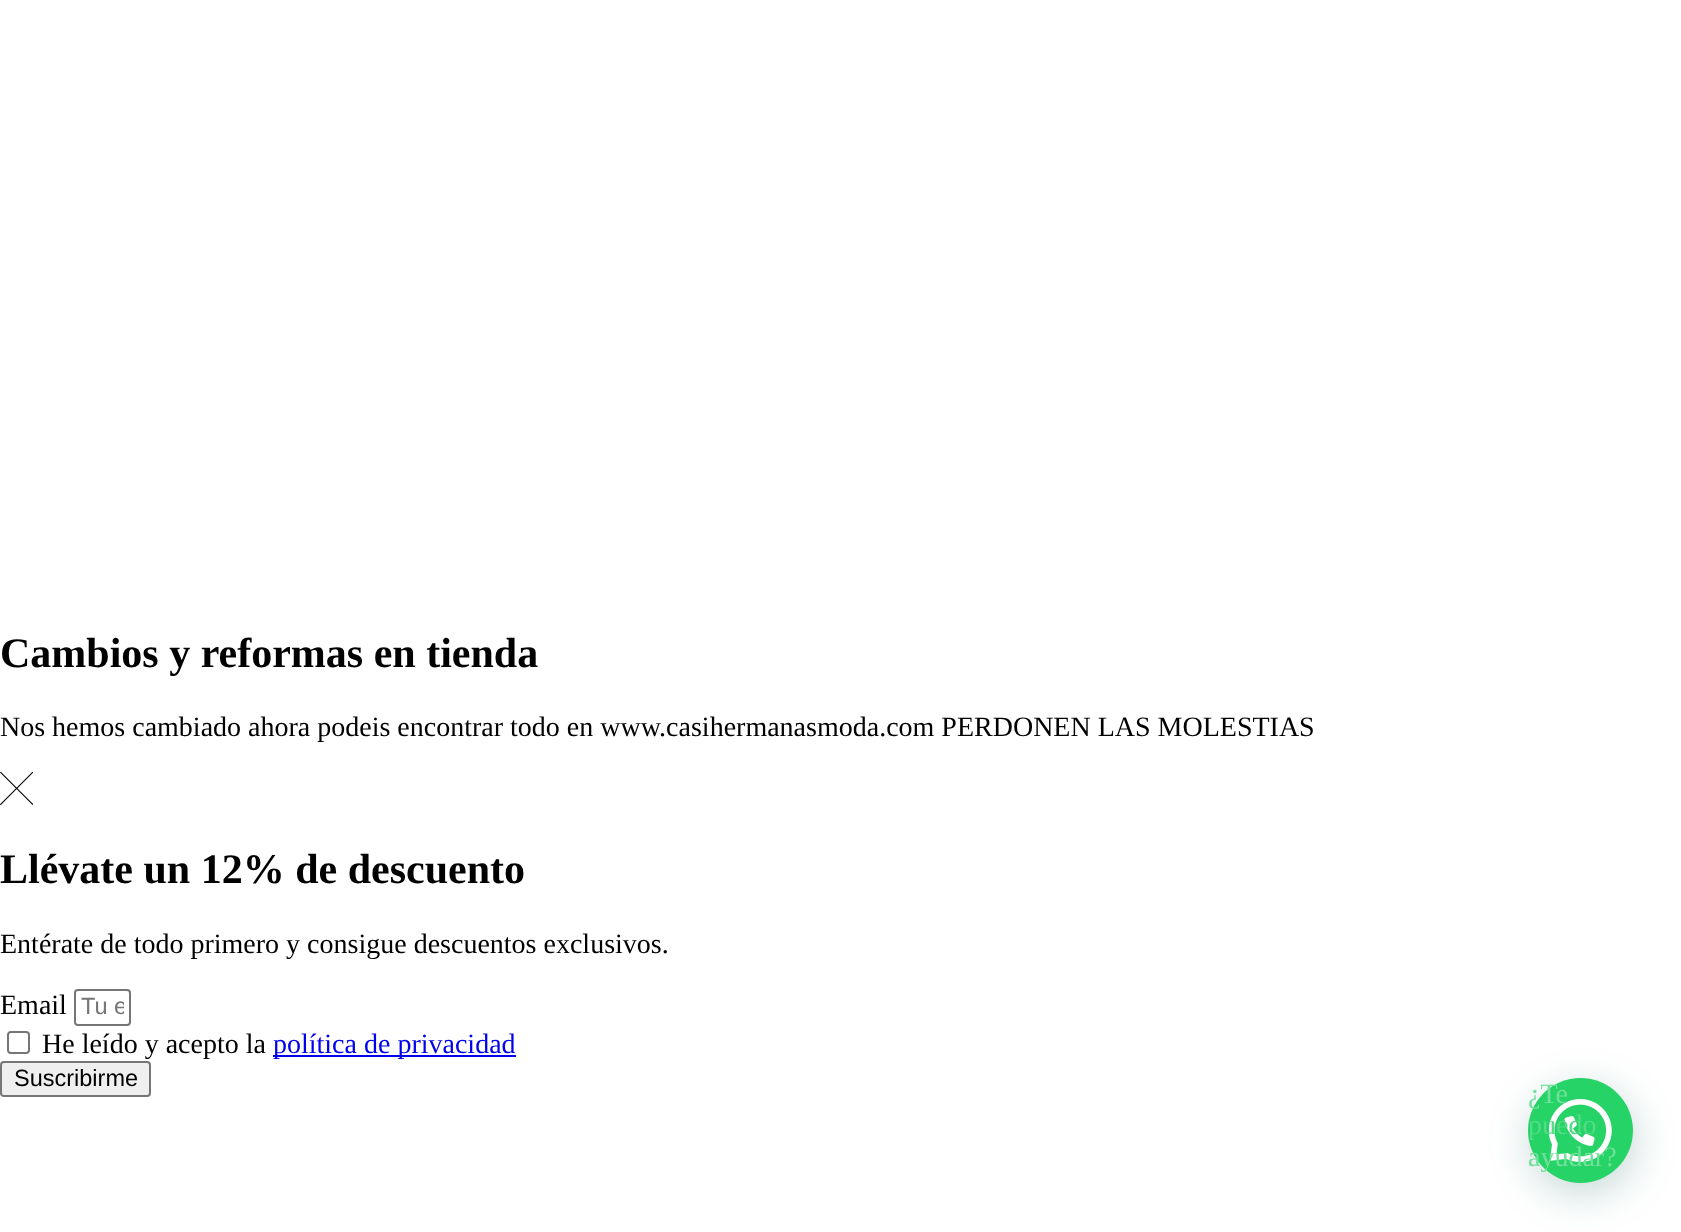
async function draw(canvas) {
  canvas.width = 1681;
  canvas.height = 1232;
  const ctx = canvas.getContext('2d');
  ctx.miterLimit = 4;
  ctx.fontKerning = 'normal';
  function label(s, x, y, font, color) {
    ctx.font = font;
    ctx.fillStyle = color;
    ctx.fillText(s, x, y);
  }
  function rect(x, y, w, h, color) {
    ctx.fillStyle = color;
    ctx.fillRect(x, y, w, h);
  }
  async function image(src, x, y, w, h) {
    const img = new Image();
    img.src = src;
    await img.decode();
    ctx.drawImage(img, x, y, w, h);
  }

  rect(0, 0, 1681, 1232, '#fff');
  label('Cambios y reformas en tienda', 0, 667, 'bold 42px Liberation Serif', '#000');
  label('Nos hemos cambiado ahora podeis encontrar todo en www.casihermanasmoda.com PERDONEN LAS MOLESTIAS', 0, 736, '28px Liberation Serif', '#000');
  await image('assets/img1.png', 0, 772, 33, 33);
  label('Llévate un 12% de descuento', 0, 883, 'bold 42px Liberation Serif', '#000');
  label('Entérate de todo primero y consigue descuentos exclusivos.', 0, 953, '28px Liberation Serif', '#000');
  label('Email', 0, 1014, '28px Liberation Serif', '#000');
  ctx.beginPath();
  ctx.roundRect(75, 990, 55, 35, 3);
  ctx.strokeStyle = '#767676';
  ctx.lineWidth = 2;
  ctx.stroke();
  ctx.save();
  ctx.beginPath();
  ctx.rect(81, 994, 43, 26);
  ctx.clip();
  label('Tu e', 81, 1014, '23.5px Liberation Sans', '#757575');
  ctx.restore();
  ctx.beginPath();
  ctx.roundRect(8, 1032, 21, 21, 3);
  ctx.stroke();
  label('He leído y acepto la', 42, 1053, '28px Liberation Serif', '#000');
  rect(273, 1055, 243, 2, '#00e');
  label('política de privacidad', 273, 1053, '28px Liberation Serif', '#00e');
  ctx.fillStyle = '#efefef';
  ctx.beginPath();
  ctx.roundRect(1, 1062, 149, 34, 3);
  ctx.fill();
  ctx.stroke();
  label('Suscribirme', 14, 1086, '23.5px Liberation Sans', '#000');
  ctx.fillStyle = '#075e543d';
  ctx.filter = 'blur(21px)';
  ctx.beginPath();
  ctx.roundRect(1530, 1089, 105, 105, 52.5);
  ctx.fill();
  ctx.filter = 'none';
  ctx.fillStyle = '#25d366';
  ctx.beginPath();
  ctx.arc(1580.5, 1130.5, 52.5, 0, 2 * Math.PI);
  ctx.fill();
  await image('assets/img2.png', 1549, 1099, 63, 63);
  label('¿Te', 1528, 1103, '28px Liberation Serif', '#71e09b');
  label('puedo', 1528, 1134, '28px Liberation Serif', '#51dc85');
  label('ayudar?', 1528, 1166, '28px Liberation Serif', '#71e09b');
}

draw(document.querySelector('canvas'));
